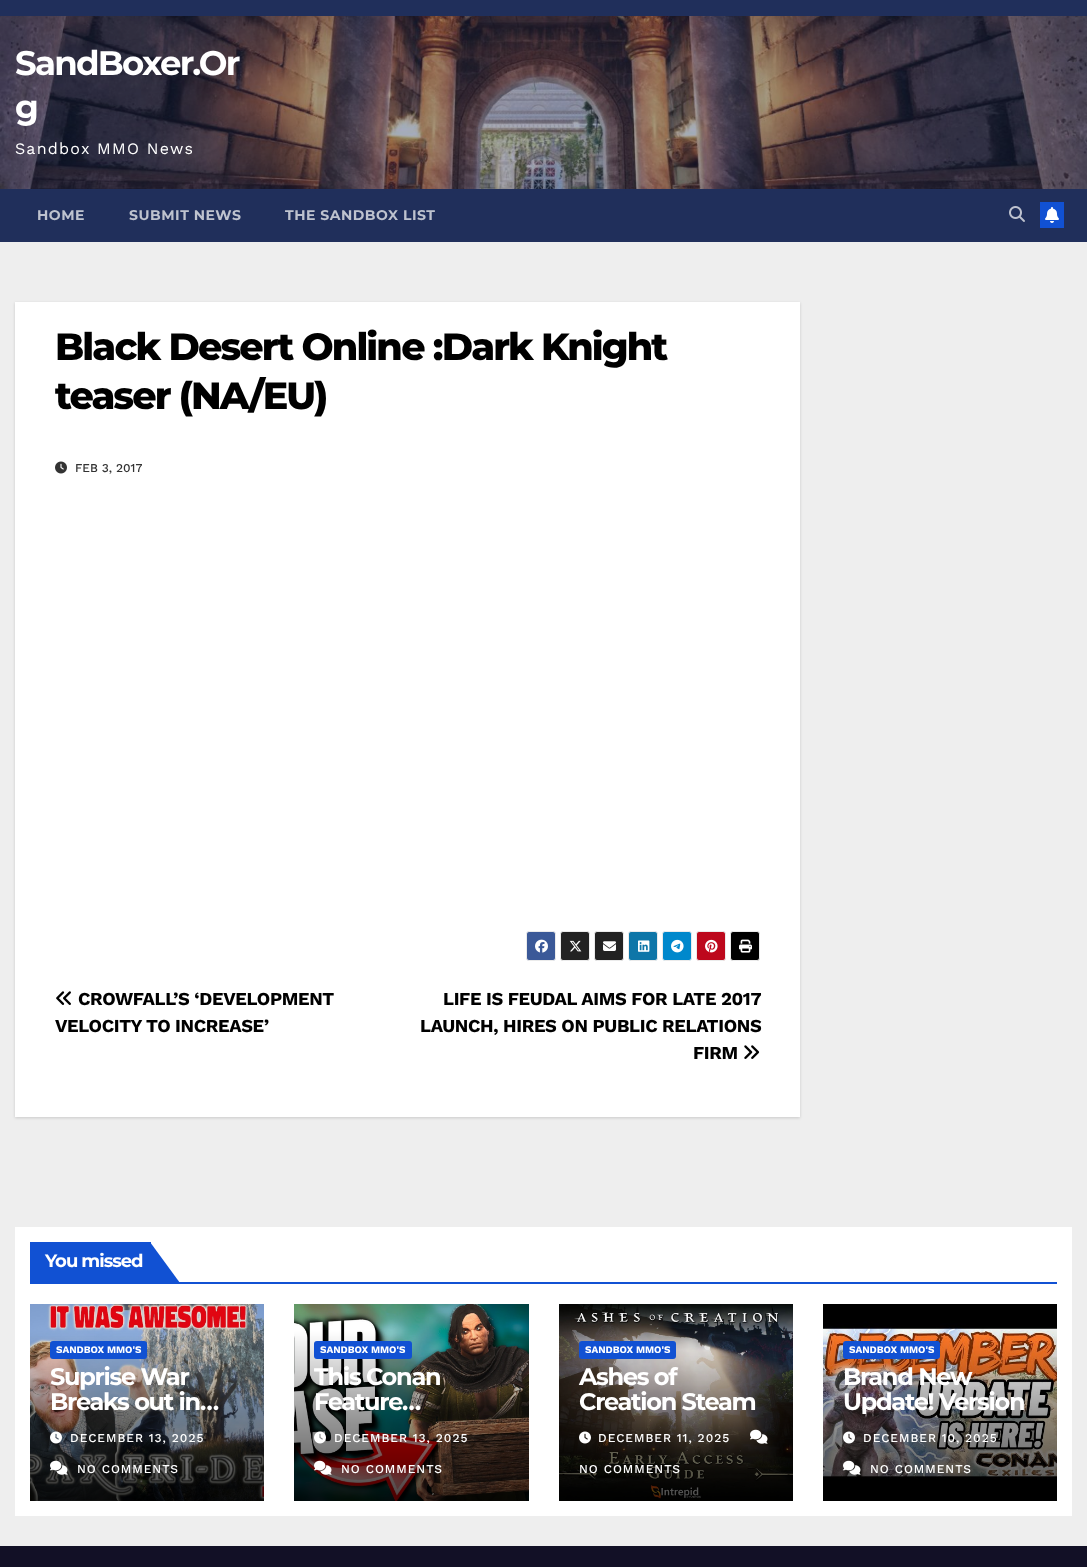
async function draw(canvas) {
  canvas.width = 1087;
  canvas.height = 1567;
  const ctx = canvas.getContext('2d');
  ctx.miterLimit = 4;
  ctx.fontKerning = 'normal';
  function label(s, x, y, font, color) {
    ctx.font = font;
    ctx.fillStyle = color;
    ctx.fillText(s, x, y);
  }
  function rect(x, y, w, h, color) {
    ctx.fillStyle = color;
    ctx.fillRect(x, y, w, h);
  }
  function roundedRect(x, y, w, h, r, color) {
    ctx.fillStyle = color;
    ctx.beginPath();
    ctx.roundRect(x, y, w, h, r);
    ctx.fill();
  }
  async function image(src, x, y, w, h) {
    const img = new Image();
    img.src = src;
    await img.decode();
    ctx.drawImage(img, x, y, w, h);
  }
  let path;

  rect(0, 0, 1087, 1567, '#eee');
  rect(0, 0, 1087, 16, '#202f5b');
  await image('assets/img1.png', 0, 16, 1087, 173);
  ctx.letterSpacing = '-1.75px';
  label('SandBoxer.Or', 15, 75, 'bold 34px Montserrat', '#fff');
  label('g', 15, 119, 'bold 34px Montserrat', '#fff');
  ctx.letterSpacing = '1.25px';
  label('Sandbox MMO News', 15, 154, '16px Work Sans', '#fff');
  rect(0, 189, 1087, 53, '#202f5b');
  ctx.letterSpacing = '0.5px';
  label('HOME', 37, 220, 'bold 14px Montserrat', '#bec3cf');
  label('SUBMIT NEWS', 129, 220, 'bold 14px Montserrat', '#bec3cf');
  label('THE SANDBOX LIST', 285, 220, 'bold 14px Montserrat', '#bec3cf');
  await image('assets/img2.png', 1009, 206, 16, 16);
  rect(1040, 202, 24, 26, '#1151d3');
  await image('assets/img3.png', 1045, 207, 14, 16);
  ctx.fillStyle = '#00000026';
  ctx.filter = 'blur(1.5px)';
  ctx.beginPath();
  ctx.rect(15, 303, 785, 815);
  ctx.fill();
  ctx.filter = 'none';
  rect(15, 302, 785, 815, '#fff');
  ctx.letterSpacing = '-1.9px';
  label('Black Desert Online :Dark Knight', 55, 360, '800 38px Montserrat', '#000');
  label('teaser (NA/EU)', 55, 409, '800 38px Montserrat', '#000');
  await image('assets/img4.png', 55, 461, 12, 13);
  ctx.letterSpacing = '0px';
  label('FEB 3, 2017', 75, 472, '500 12px Work Sans', '#333');
  ctx.fillStyle = '#3b5998';
  ctx.beginPath();
  ctx.roundRect(526.5, 931.5, 29, 29, 2.5);
  ctx.fill();
  ctx.strokeStyle = '#ebebeb';
  ctx.stroke();
  await image('assets/img5.png', 535, 939, 13, 14);
  ctx.fillStyle = '#222';
  ctx.beginPath();
  ctx.roundRect(560.5, 931.5, 29, 29, 2.5);
  ctx.fill();
  ctx.stroke();
  await image('assets/img6.png', 569, 940, 13, 12);
  ctx.beginPath();
  ctx.roundRect(594.5, 931.5, 29, 29, 2.5);
  ctx.fill();
  ctx.stroke();
  await image('assets/img7.png', 603, 941, 13, 10);
  ctx.fillStyle = '#0e76a8';
  ctx.beginPath();
  ctx.roundRect(628.5, 931.5, 29, 29, 2.5);
  ctx.fill();
  ctx.stroke();
  await image('assets/img8.png', 638, 940, 12, 12);
  ctx.fillStyle = '#08c';
  ctx.beginPath();
  ctx.roundRect(662.5, 931.5, 29, 29, 2.5);
  ctx.fill();
  ctx.stroke();
  await image('assets/img9.png', 671, 939, 13, 14);
  ctx.fillStyle = '#bd081c';
  ctx.beginPath();
  ctx.roundRect(696.5, 931.5, 29, 29, 2.5);
  ctx.fill();
  ctx.stroke();
  await image('assets/img10.png', 705, 939, 13, 14);
  ctx.fillStyle = '#000';
  ctx.beginPath();
  ctx.roundRect(730.5, 931.5, 29, 29, 2.5);
  ctx.fill();
  ctx.stroke();
  await image('assets/img11.png', 739, 939, 13, 14);
  await image('assets/img12.png', 56, 991, 15, 14);
  ctx.letterSpacing = '-0.35px';
  label('CROWFALL’S ‘DEVELOPMENT', 78, 1005, 'bold 18.25px Work Sans', '#000');
  label('VELOCITY TO INCREASE’', 55, 1032, 'bold 18.25px Work Sans', '#000');
  label('LIFE IS FEUDAL AIMS FOR LATE 2017', 443, 1005, 'bold 18.25px Work Sans', '#000');
  label('LAUNCH, HIRES ON PUBLIC RELATIONS', 420, 1032, 'bold 18.25px Work Sans', '#000');
  label('FIRM', 693, 1059, 'bold 18.25px Work Sans', '#000');
  await image('assets/img13.png', 744, 1045, 16, 14);
  rect(15, 1227, 1057, 289, '#fff');
  rect(30, 1282, 1027, 2, '#1151d3');
  rect(30, 1242, 121, 40, '#1151d3');
  ctx.letterSpacing = '-1px';
  label('You missed', 45, 1267, 'bold 18px Montserrat', '#fff');
  ctx.fillStyle = '#1151d3';
  path = new Path2D('M150 1242V1283H180Z');
  ctx.fill(path);
  await image('assets/img14.png', 30, 1304, 234, 197);
  roundedRect(50, 1341, 97, 18, 3, '#1151d3');
  ctx.letterSpacing = '0px';
  label('SANDBOX MMO\'S', 56, 1353, 'bold 10px Work Sans', '#fff');
  ctx.letterSpacing = '-1.25px';
  label('Suprise War', 50, 1385, 'bold 24px Montserrat', '#fff');
  label('Breaks out in…', 50, 1410, 'bold 24px Montserrat', '#fff');
  await image('assets/img15.png', 50, 1431, 12, 13);
  ctx.letterSpacing = '1px';
  label('DECEMBER 13, 2025', 70, 1442, '500 12px Work Sans', '#fff');
  await image('assets/img16.png', 50, 1460, 18, 15);
  label('NO COMMENTS', 77, 1473, '500 12px Work Sans', '#fff');
  await image('assets/img17.png', 294, 1304, 235, 197);
  roundedRect(314, 1341, 98, 18, 3, '#1151d3');
  ctx.letterSpacing = '0px';
  label('SANDBOX MMO\'S', 320, 1353, 'bold 10px Work Sans', '#fff');
  ctx.letterSpacing = '-1.25px';
  label('This Conan', 314, 1385, 'bold 24px Montserrat', '#fff');
  label('Feature…', 314, 1410, 'bold 24px Montserrat', '#fff');
  await image('assets/img18.png', 314, 1431, 12, 13);
  ctx.letterSpacing = '1px';
  label('DECEMBER 13, 2025', 334, 1442, '500 12px Work Sans', '#fff');
  await image('assets/img19.png', 314, 1460, 18, 15);
  label('NO COMMENTS', 341, 1473, '500 12px Work Sans', '#fff');
  await image('assets/img20.png', 559, 1304, 234, 197);
  roundedRect(579, 1341, 97, 18, 3, '#1151d3');
  ctx.letterSpacing = '0px';
  label('SANDBOX MMO\'S', 585, 1353, 'bold 10px Work Sans', '#fff');
  ctx.letterSpacing = '-1.25px';
  label('Ashes of', 579, 1385, 'bold 24px Montserrat', '#fff');
  label('Creation Steam', 579, 1410, 'bold 24px Montserrat', '#fff');
  await image('assets/img21.png', 579, 1431, 12, 13);
  ctx.letterSpacing = '1px';
  label('DECEMBER 11, 2025', 598, 1442, '500 12px Work Sans', '#fff');
  await image('assets/img22.png', 750, 1429, 18, 15);
  label('NO COMMENTS', 579, 1473, '500 12px Work Sans', '#fff');
  await image('assets/img23.png', 823, 1304, 234, 197);
  roundedRect(843, 1341, 97, 18, 3, '#1151d3');
  ctx.letterSpacing = '0px';
  label('SANDBOX MMO\'S', 849, 1353, 'bold 10px Work Sans', '#fff');
  ctx.letterSpacing = '-1.25px';
  label('Brand New', 843, 1385, 'bold 24px Montserrat', '#fff');
  ctx.save();
  ctx.beginPath();
  ctx.rect(843, 1364, 194, 50);
  ctx.clip();
  label('Update! Version', 843, 1410, 'bold 24px Montserrat', '#fff');
  ctx.restore();
  await image('assets/img24.png', 843, 1431, 12, 13);
  ctx.letterSpacing = '1px';
  label('DECEMBER 10, 2025', 863, 1442, '500 12px Work Sans', '#fff');
  await image('assets/img25.png', 843, 1460, 18, 15);
  label('NO COMMENTS', 870, 1473, '500 12px Work Sans', '#fff');
  rect(0, 1546, 1087, 21, '#121026');
}

draw(document.querySelector('canvas'));
